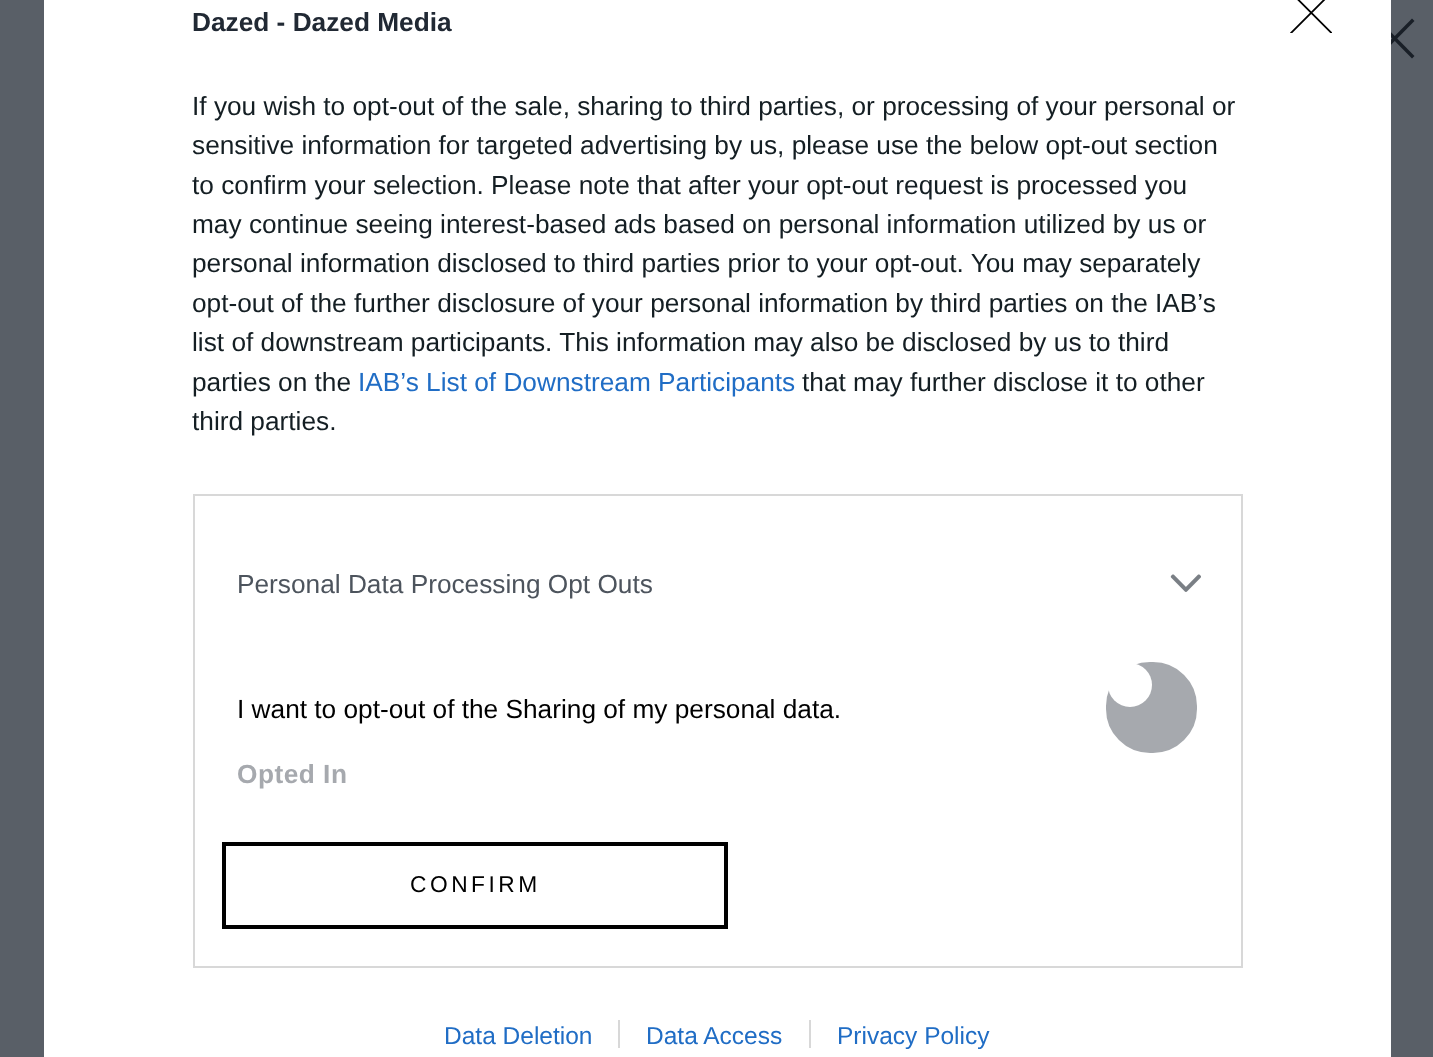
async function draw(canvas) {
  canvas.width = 1433;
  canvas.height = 1057;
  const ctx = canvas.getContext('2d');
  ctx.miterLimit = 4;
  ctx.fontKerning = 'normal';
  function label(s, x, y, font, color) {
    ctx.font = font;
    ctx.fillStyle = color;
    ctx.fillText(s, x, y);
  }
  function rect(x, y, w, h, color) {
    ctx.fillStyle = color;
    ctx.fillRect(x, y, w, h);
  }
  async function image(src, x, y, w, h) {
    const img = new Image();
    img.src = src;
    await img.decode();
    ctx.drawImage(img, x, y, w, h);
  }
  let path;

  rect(0, 0, 1433, 1057, '#595f67');
  ctx.fillStyle = '#191f27';
  path = new Path2D('M1412 18.5L1414.5 21L1377.5 58.5L1375 56Z');
  ctx.fill(path, 'evenodd');
  path = new Path2D('M1414.5 56L1412 58.5L1375 21L1377.5 18.5Z');
  ctx.fill(path, 'evenodd');
  rect(44, 0, 1347, 1057, '#fff');
  label('Dazed - Dazed Media', 192, 31, 'bold 26.25px Liberation Sans', '#212934');
  label('If you wish to opt-out of the sale, sharing to third parties, or processing of your personal or', 192, 115, '26.25px Liberation Sans', '#141e23');
  ctx.save();
  ctx.beginPath();
  ctx.rect(193, 61, 1050, 406);
  ctx.clip();
  label('sensitive information for targeted advertising by us, please use the below opt-out section', 192, 154, '26.25px Liberation Sans', '#141e23');
  ctx.restore();
  label('to confirm your selection. Please note that after your opt-out request is processed you', 192, 194, '26.25px Liberation Sans', '#141e23');
  label('may continue seeing interest-based ads based on personal information utilized by us or', 192, 233, '26.25px Liberation Sans', '#141e23');
  label('personal information disclosed to third parties prior to your opt-out. You may separately', 192, 272, '26.25px Liberation Sans', '#141e23');
  ctx.save();
  ctx.beginPath();
  ctx.rect(193, 61, 1050, 406);
  ctx.clip();
  label('opt-out of the further disclosure of your personal information by third parties on the IAB’s', 192, 312, '26.25px Liberation Sans', '#141e23');
  ctx.restore();
  label('list of downstream participants. This information may also be disclosed by us to third', 192, 351, '26.25px Liberation Sans', '#141e23');
  label('parties on the', 192, 391, '26.25px Liberation Sans', '#141e23');
  label('IAB’s List of Downstream Participants', 358, 391, '26.25px Liberation Sans', '#206dc5');
  label('that may further disclose it to other', 802, 391, '26.25px Liberation Sans', '#141e23');
  label('third parties.', 192, 430, '26.25px Liberation Sans', '#141e23');
  ctx.strokeStyle = '#d8d8d8';
  ctx.lineWidth = 2;
  ctx.strokeRect(194, 495, 1048, 472);
  label('Personal Data Processing Opt Outs', 237, 593, '26.25px Liberation Sans', '#4d545d');
  await image('assets/img1.png', 1170, 574, 31, 18);
  label('I want to opt-out of the Sharing of my personal data.', 237, 718, '26.25px Liberation Sans', '#000');
  ctx.fillStyle = '#a6a9ae';
  ctx.beginPath();
  ctx.roundRect(1107, 663, 89, 89, 43);
  ctx.fill();
  ctx.strokeStyle = '#a6a9ae';
  ctx.stroke();
  ctx.fillStyle = '#fff';
  ctx.beginPath();
  ctx.arc(1130, 685, 22, 0, 2 * Math.PI);
  ctx.fill();
  ctx.letterSpacing = '0.5px';
  label('Opted In', 237, 783, 'bold 26.25px Liberation Sans', '#a6a9ae');
  ctx.strokeStyle = '#000';
  ctx.lineWidth = 4;
  ctx.strokeRect(224, 844, 502, 83);
  ctx.letterSpacing = '3.5px';
  label('CONFIRM', 410, 892, '22.75px Liberation Sans', '#000');
  ctx.save();
  ctx.beginPath();
  ctx.rect(1290, 0, 42, 33);
  ctx.clip();
  path = new Path2D('M1290.5-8L1332 33.5M1332-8L1290.5 33.5');
  ctx.lineWidth = 1.8;
  ctx.lineCap = 'round';
  ctx.lineJoin = 'round';
  ctx.stroke(path);
  ctx.restore();
  ctx.letterSpacing = '0px';
  label('Data Deletion', 444, 1044, '24.5px Liberation Sans', '#206dc5');
  label('Data Access', 646, 1044, '24.5px Liberation Sans', '#206dc5');
  rect(618, 1020, 2, 28, '#d8d8d8');
  label('Privacy Policy', 837, 1044, '24.5px Liberation Sans', '#206dc5');
  rect(809, 1020, 2, 28, '#d8d8d8');
}

draw(document.querySelector('canvas'));
